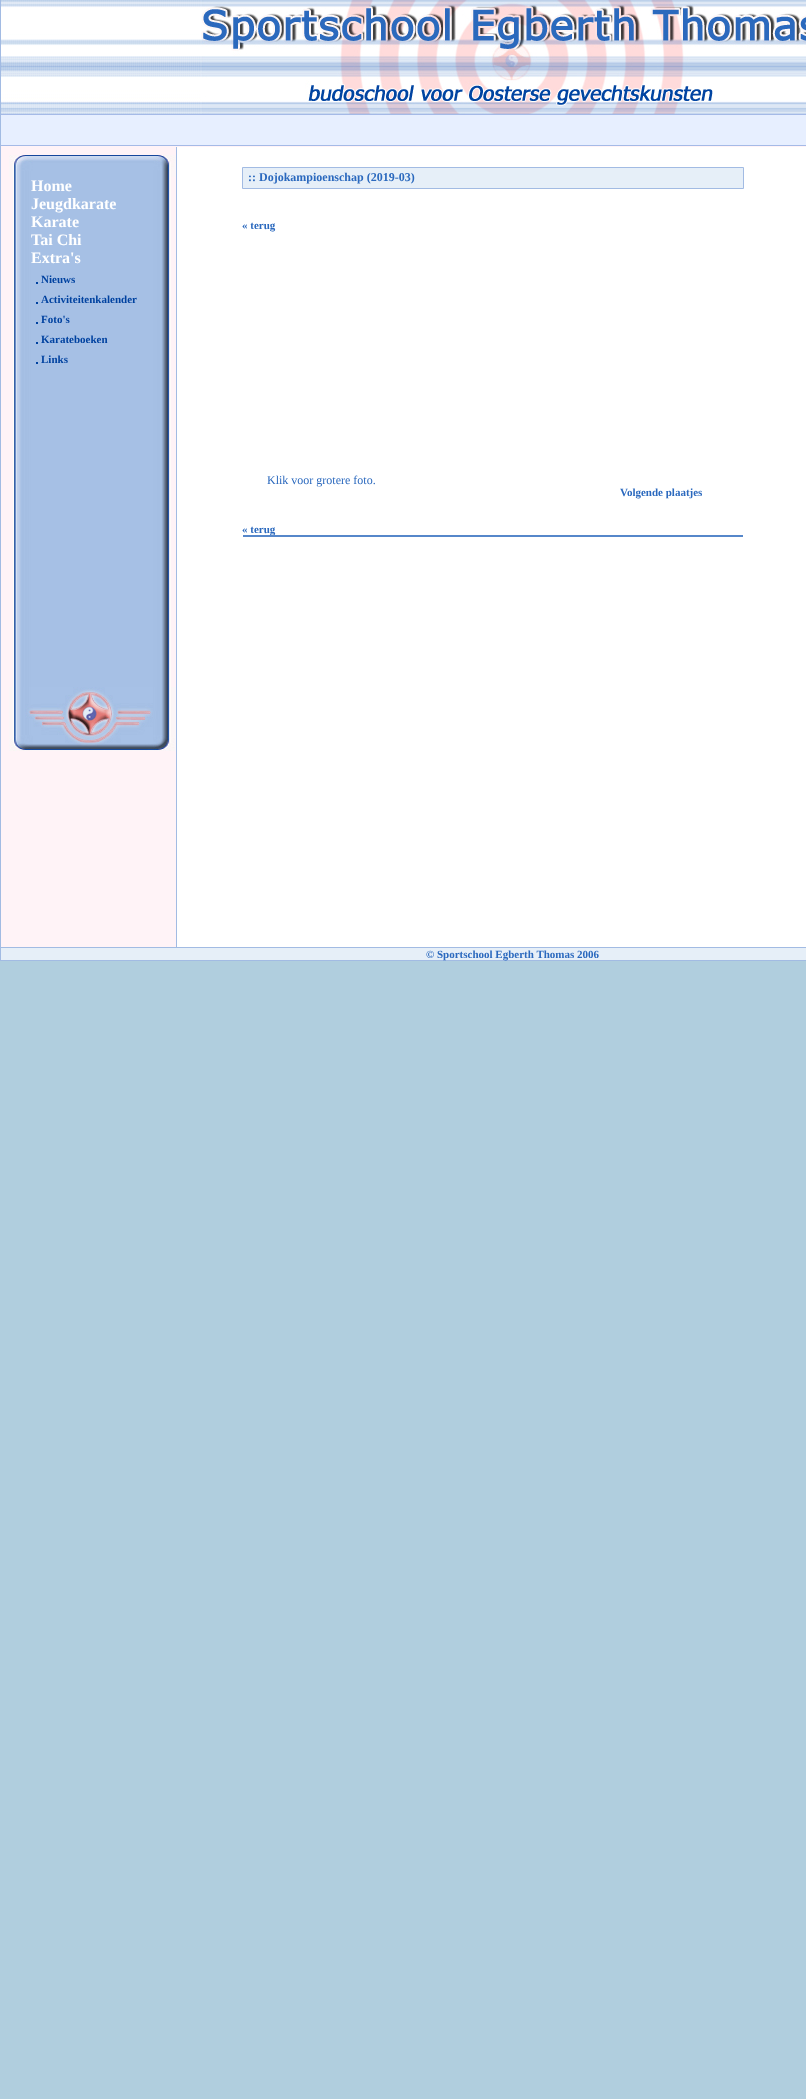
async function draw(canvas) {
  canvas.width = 806;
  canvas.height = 2099;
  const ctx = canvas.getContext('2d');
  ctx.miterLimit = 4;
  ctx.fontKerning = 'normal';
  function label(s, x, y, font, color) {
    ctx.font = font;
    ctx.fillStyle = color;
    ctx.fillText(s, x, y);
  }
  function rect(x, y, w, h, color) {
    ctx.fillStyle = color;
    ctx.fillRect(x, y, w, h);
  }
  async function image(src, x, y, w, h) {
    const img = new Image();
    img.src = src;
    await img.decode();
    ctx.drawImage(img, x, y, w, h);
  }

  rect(0, 0, 806, 2099, '#b0cede');
  rect(1, 146, 805, 801, '#fff3f7');
  rect(0, 0, 1, 961, '#a2bbe3');
  await image('assets/img1.png', 1, 0, 200, 114);
  await image('assets/img2.png', 201, 0, 605, 114);
  rect(1, 115, 805, 30, '#e7efff');
  rect(1, 114, 805, 1, '#a5bae7');
  rect(1, 145, 805, 1, '#a5bae7');
  await image('assets/img3.png', 9, 155, 167, 22);
  await image('assets/img4.png', 13, 177, 158, 190);
  label('Home', 31, 191, 'bold 16px Liberation Serif', '#fff');
  label('Jeugdkarate', 31, 209, 'bold 16px Liberation Serif', '#fff');
  label('Karate', 31, 227, 'bold 16px Liberation Serif', '#fff');
  label('Tai Chi', 31, 245, 'bold 16px Liberation Serif', '#fff');
  label('Extra\'s', 31, 263, 'bold 16px Liberation Serif', '#fff');
  rect(36, 282, 2, 2, '#0042a0');
  label('Nieuws', 41, 283, 'bold 11px Liberation Serif', '#0042a0');
  rect(36, 302, 2, 2, '#0042a0');
  label('Activiteitenkalender', 41, 303, 'bold 11px Liberation Serif', '#0042a0');
  rect(36, 322, 2, 2, '#0042a0');
  label('Foto\'s', 41, 323, 'bold 11px Liberation Serif', '#0042a0');
  rect(36, 342, 2, 2, '#0042a0');
  label('Karateboeken', 41, 343, 'bold 11px Liberation Serif', '#0042a0');
  rect(36, 362, 2, 2, '#0042a0');
  label('Links', 41, 363, 'bold 11px Liberation Serif', '#0042a0');
  await image('assets/img5.png', 13, 367, 158, 320);
  await image('assets/img6.png', 9, 687, 167, 64);
  rect(177, 147, 629, 800, '#fff');
  rect(176, 147, 1, 800, '#a2bbe3');
  ctx.fillStyle = '#e6eff8';
  ctx.beginPath();
  ctx.rect(242.5, 167.5, 501, 21);
  ctx.fill();
  ctx.strokeStyle = '#a2bbe3';
  ctx.stroke();
  label(':: Dojokampioenschap (2019-03)', 248, 181, 'bold 12px Liberation Serif', '#2b69be');
  label('« terug', 242, 229, 'bold 11px Liberation Serif', '#2b69be');
  label('Klik voor grotere foto.', 267, 484, '12px Liberation Serif', '#2b69be');
  label('Volgende plaatjes', 620, 496, 'bold 11px Liberation Serif', '#2b69be');
  label('« terug', 242, 533, 'bold 11px Liberation Serif', '#2b69be');
  rect(243, 535, 500, 2, '#5687ca');
  rect(1, 948, 805, 12, '#e6eff8');
  rect(1, 947, 805, 1, '#a2bbe3');
  rect(1, 960, 805, 1, '#a2bbe3');
  label('© Sportschool Egberth Thomas 2006', 426, 958, 'bold 11px Liberation Serif', '#2b69be');
}

draw(document.querySelector('canvas'));
